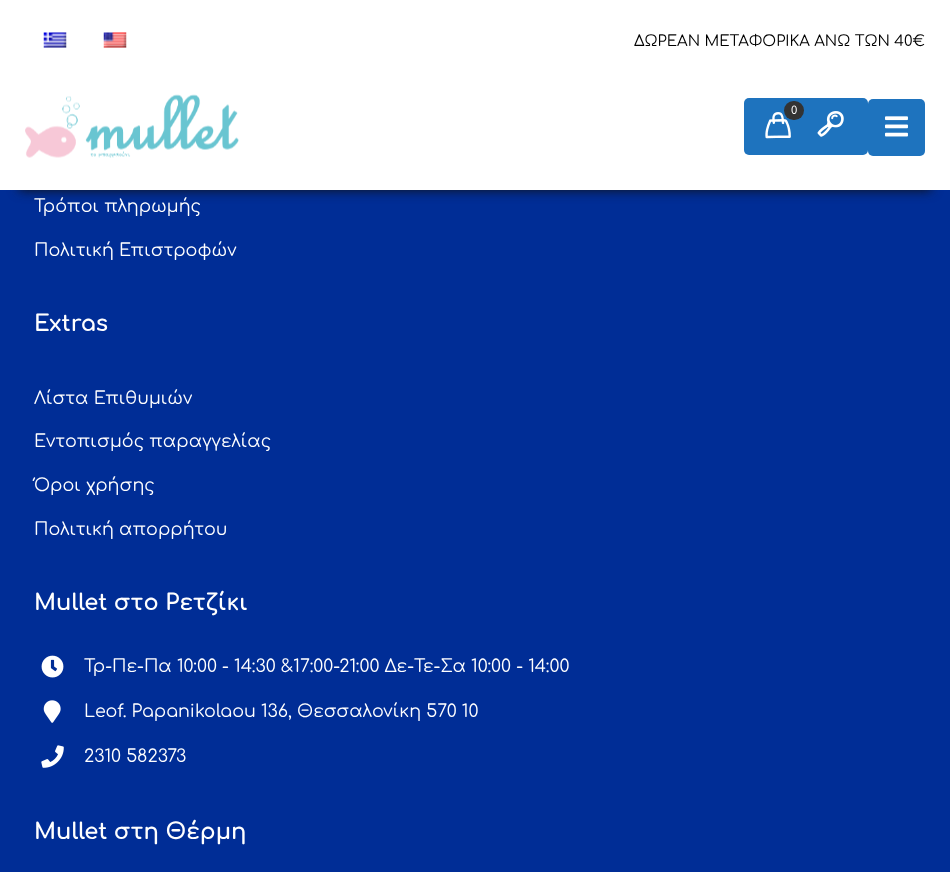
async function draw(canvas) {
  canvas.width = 950;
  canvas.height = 872;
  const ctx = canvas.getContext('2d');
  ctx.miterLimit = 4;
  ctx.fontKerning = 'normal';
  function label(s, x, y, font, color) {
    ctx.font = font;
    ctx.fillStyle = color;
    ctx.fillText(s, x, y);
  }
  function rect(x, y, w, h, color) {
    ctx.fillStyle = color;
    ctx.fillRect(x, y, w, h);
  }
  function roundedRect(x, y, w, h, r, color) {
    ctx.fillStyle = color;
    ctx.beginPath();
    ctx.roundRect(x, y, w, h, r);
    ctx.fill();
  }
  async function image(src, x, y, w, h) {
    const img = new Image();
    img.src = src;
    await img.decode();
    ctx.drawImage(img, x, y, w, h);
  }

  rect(0, 0, 950, 872, '#002d96');
  ctx.fillStyle = '#111';
  ctx.filter = 'blur(6px)';
  ctx.beginPath();
  ctx.rect(19, 38, 912, 152);
  ctx.fill();
  ctx.filter = 'none';
  rect(0, 0, 950, 190, '#fff');
  await image('assets/img1.png', 43, 32, 24, 16);
  await image('assets/img2.png', 103, 32, 24, 16);
  label('ΔΩΡΕΑΝ ΜΕΤΑΦΟΡΙΚΑ ΑΝΩ ΤΩΝ 40€', 634, 46, '15px Comfortaa', '#000');
  await image('assets/img3.png', 25, 94, 214, 64);
  roundedRect(744, 98, 124, 57, 5, '#1e73be');
  await image('assets/img4.png', 765, 112, 26, 27);
  roundedRect(784, 101, 20, 19, 9.5, '#333');
  label('0', 791, 114, '500 11px Comfortaa', '#fff');
  await image('assets/img5.png', 817, 111, 27, 26);
  roundedRect(868, 99, 57, 57, 5, '#1e73be');
  await image('assets/img6.png', 885, 116, 23, 21);
  label('Τρόποι πληρωμής', 34, 212, '17.5px Comfortaa', '#fff');
  label('Πολιτική Επιστροφών', 34, 256, '17.5px Comfortaa', '#fff');
  label('Extras', 34, 331, 'bold 22.5px Comfortaa', '#fff');
  label('Λίστα Επιθυμιών', 34, 404, '17.5px Comfortaa', '#fff');
  label('Εντοπισμός παραγγελίας', 34, 447, '17.5px Comfortaa', '#fff');
  label('Όροι χρήσης', 34, 491, '17.5px Comfortaa', '#fff');
  label('Πολιτική απορρήτου', 34, 535, '17.5px Comfortaa', '#fff');
  label('Mullet στο Ρετζίκι', 34, 610, 'bold 22.5px Comfortaa', '#fff');
  await image('assets/img7.png', 41, 655, 23, 23);
  label('Τρ-Πε-Πα 10:00 - 14:30 &17:00-21:00 Δε-Τε-Σα 10:00 - 14:00', 84, 672, '17.5px Comfortaa', '#fff');
  await image('assets/img8.png', 43, 700, 18, 23);
  label('Leof. Papanikolaou 136, Θεσσαλονίκη 570 10', 84, 717, '17.5px Comfortaa', '#fff');
  await image('assets/img9.png', 41, 745, 23, 23);
  label('2310 582373', 84, 762, '17.5px Comfortaa', '#fff');
  label('Mullet στη Θέρμη', 34, 839, 'bold 22.5px Comfortaa', '#fff');
}

draw(document.querySelector('canvas'));
